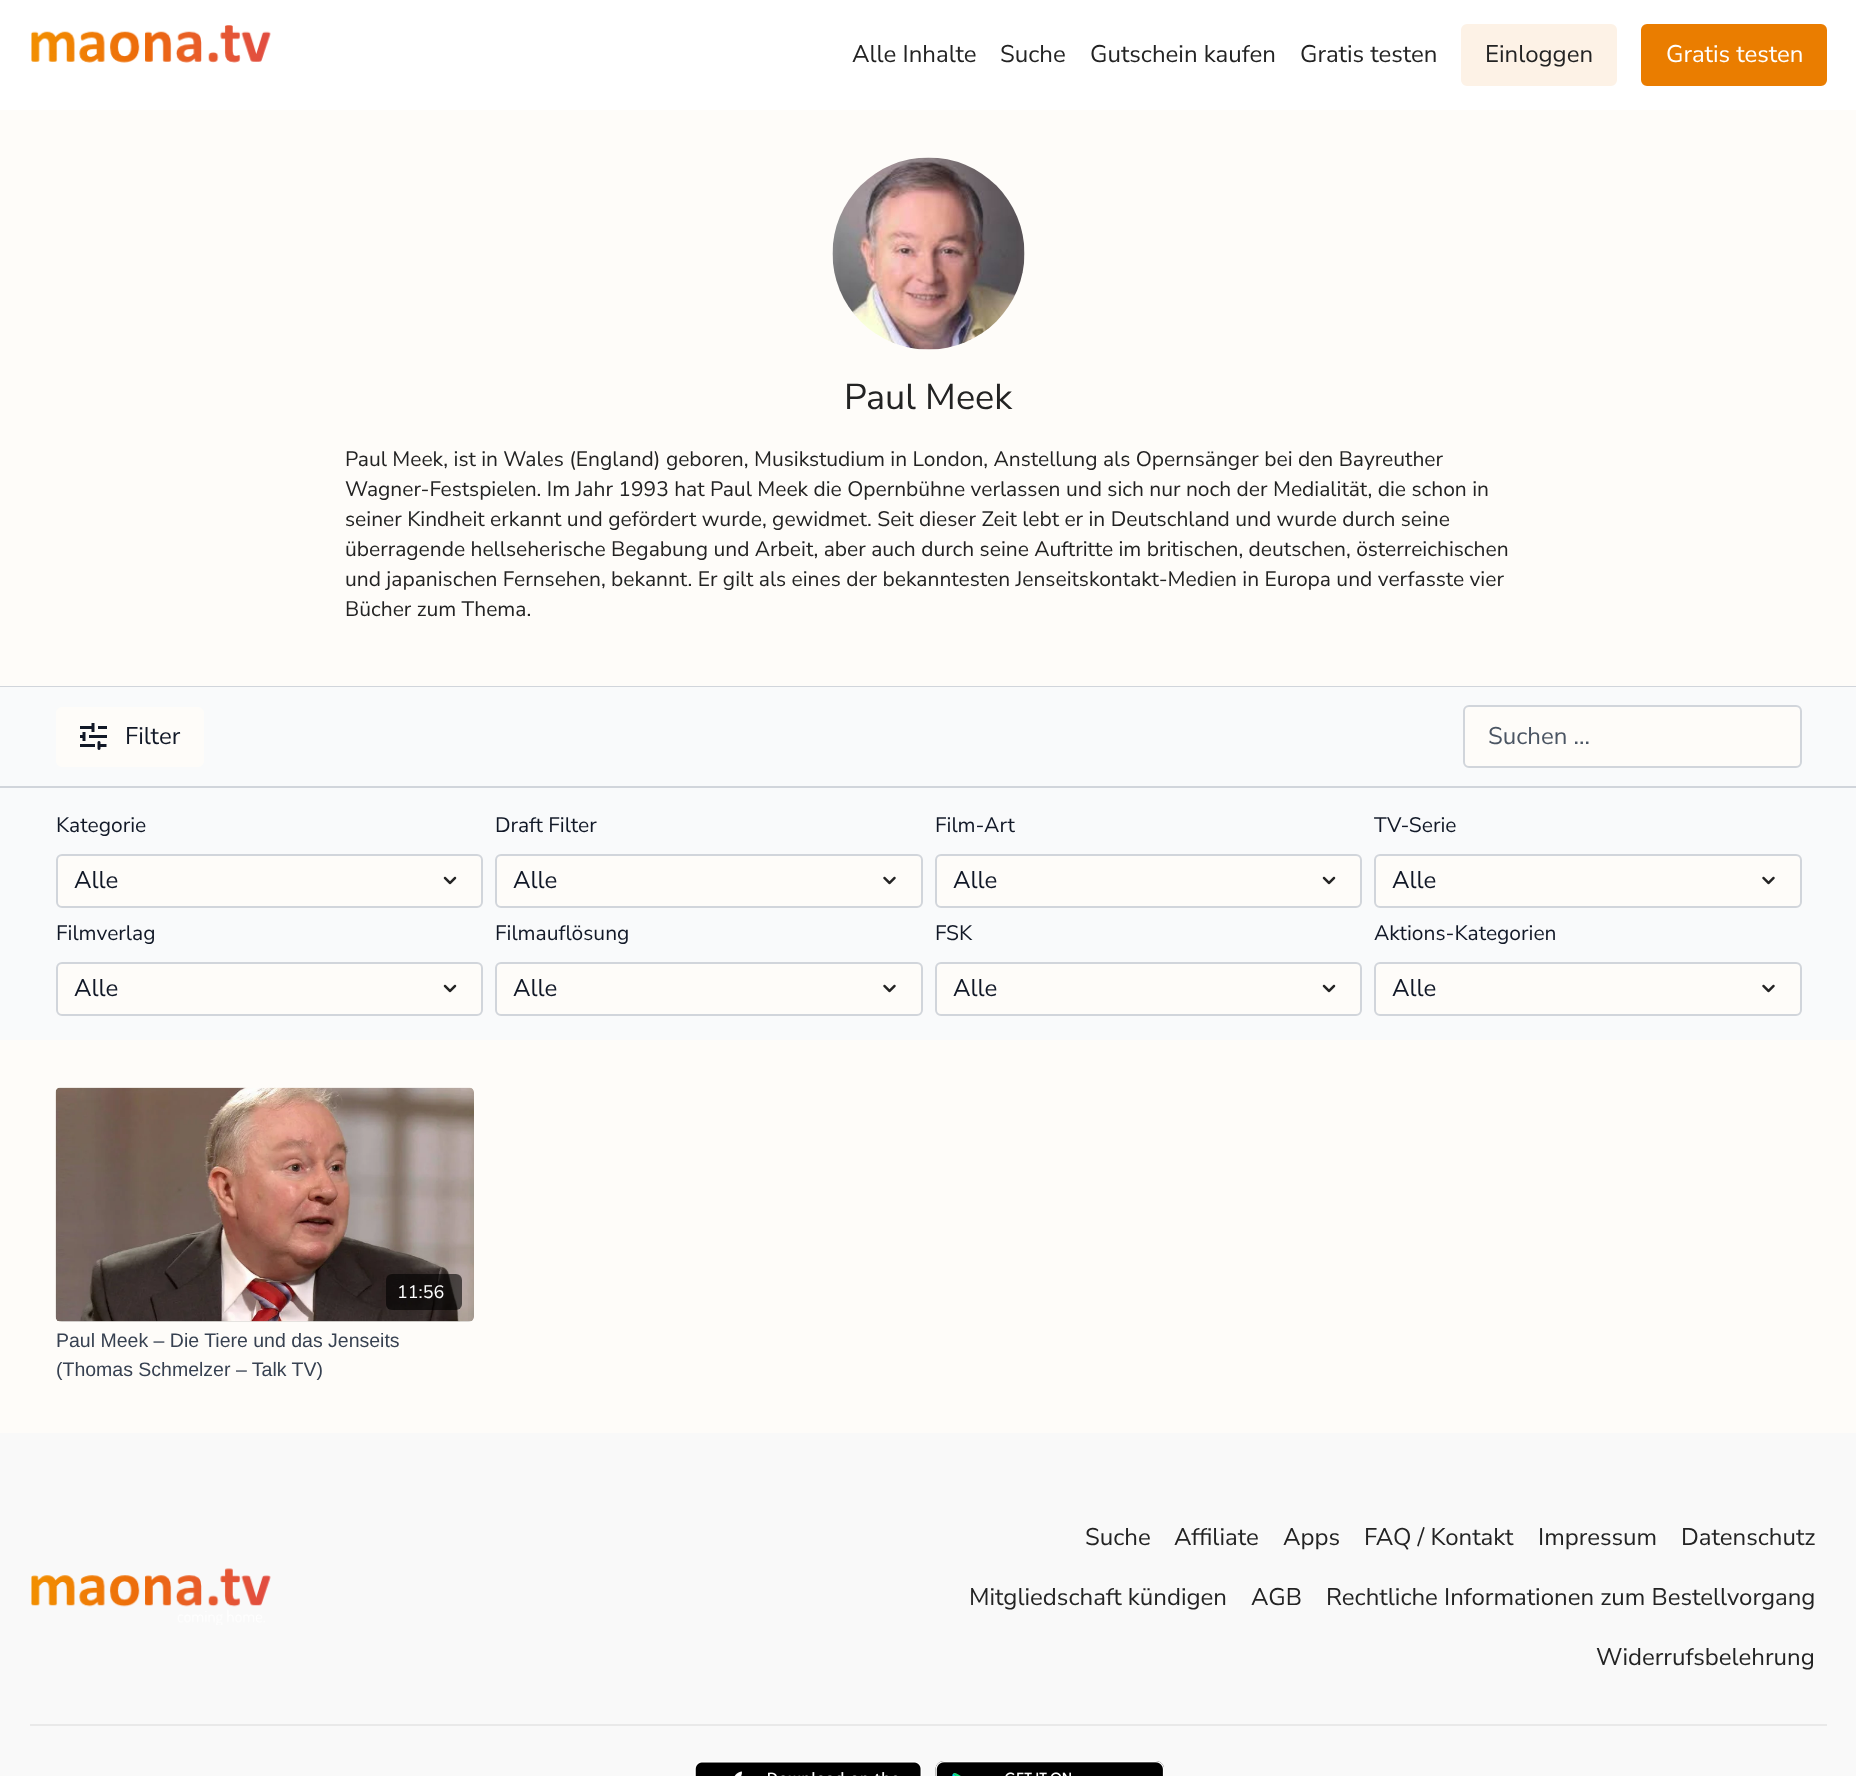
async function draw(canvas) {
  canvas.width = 1856;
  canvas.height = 1776;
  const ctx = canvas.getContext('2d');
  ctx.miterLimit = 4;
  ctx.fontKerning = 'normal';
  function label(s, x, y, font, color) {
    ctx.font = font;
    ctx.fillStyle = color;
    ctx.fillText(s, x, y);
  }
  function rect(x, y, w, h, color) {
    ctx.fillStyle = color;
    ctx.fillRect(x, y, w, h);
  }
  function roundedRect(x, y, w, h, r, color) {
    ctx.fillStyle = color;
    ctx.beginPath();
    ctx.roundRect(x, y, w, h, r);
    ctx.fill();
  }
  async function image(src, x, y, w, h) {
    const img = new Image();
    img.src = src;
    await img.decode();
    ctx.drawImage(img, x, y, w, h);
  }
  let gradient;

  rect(0, 0, 1856, 1776, '#fefcf9');
  rect(0, 0, 1856, 110, '#fff');
  await image('assets/img1.png', 31, 25, 240, 38);
  label('Alle Inhalte', 852, 62, '24px Nunito Sans', '#232323');
  label('Suche', 1000, 62, '24px Nunito Sans', '#232323');
  label('Gutschein kaufen', 1090, 62, '24px Nunito Sans', '#232323');
  label('Gratis testen', 1300, 62, '24px Nunito Sans', '#232323');
  ctx.fillStyle = '#fdf2e6';
  ctx.beginPath();
  ctx.roundRect(1462, 25, 154, 60, 5);
  ctx.fill();
  ctx.strokeStyle = '#fdf2e6';
  ctx.lineWidth = 2;
  ctx.stroke();
  label('Einloggen', 1485, 62, '24px Nunito Sans', '#232323');
  ctx.fillStyle = '#ea7d00';
  ctx.beginPath();
  ctx.roundRect(1642, 25, 184, 60, 5);
  ctx.fill();
  ctx.strokeStyle = '#ea7d00';
  ctx.stroke();
  label('Gratis testen', 1666, 62, '24px Nunito Sans', '#fff');
  rect(0, 686, 1856, 1, '#d1d5db');
  await image('assets/img2.png', 832, 157, 193, 193);
  label('Paul Meek', 844, 409, '36px Nunito Sans', '#232323');
  label('Paul Meek, ist in Wales (England) geboren, Musikstudium in London, Anstellung als Opernsänger bei den Bayreuther', 345, 466, '21px Nunito Sans', '#232323');
  label('Wagner-Festspielen. Im Jahr 1993 hat Paul Meek die Opernbühne verlassen und sich nur noch der Medialität, die schon in', 345, 496, '21px Nunito Sans', '#232323');
  label('seiner Kindheit erkannt und gefördert wurde, gewidmet. Seit dieser Zeit lebt er in Deutschland und wurde durch seine', 345, 526, '21px Nunito Sans', '#232323');
  label('überragende hellseherische Begabung und Arbeit, aber auch durch seine Auftritte im britischen, deutschen, österreichischen', 345, 556, '21px Nunito Sans', '#232323');
  label('und japanischen Fernsehen, bekannt. Er gilt als eines der bekanntesten Jenseitskontakt-Medien in Europa und verfasste vier', 345, 586, '21px Nunito Sans', '#232323');
  label('Bücher zum Thema.', 345, 616, '21px Nunito Sans', '#232323');
  rect(0, 687, 1856, 353, '#f9fafb');
  rect(0, 786, 1856, 2, '#d1d5db');
  roundedRect(56, 707, 148, 60, 6, '#fefcf9');
  await image('assets/img3.png', 80, 723, 27, 27);
  label('Filter', 125, 744, '24px Nunito Sans', '#111827');
  ctx.fillStyle = '#fefcf9';
  ctx.beginPath();
  ctx.roundRect(1464, 706, 337, 61, 5);
  ctx.fill();
  ctx.strokeStyle = '#d1d5db';
  ctx.stroke();
  label('Suchen ...', 1488, 744, '24px Nunito Sans', '#4b5563');
  label('Kategorie', 56, 832, '21px Nunito Sans', '#111827');
  roundedRect(56, 854, 427, 54, 6, '#fefcf9');
  await image('assets/img4.png', 443, 876, 14, 9);
  ctx.beginPath();
  ctx.roundRect(57, 855, 425, 52, 5);
  ctx.stroke();
  label('Alle', 74, 888, '24px Nunito Sans', '#111827');
  label('Draft Filter', 495, 832, '21px Nunito Sans', '#111827');
  roundedRect(495, 854, 428, 54, 6, '#fefcf9');
  await image('assets/img5.png', 883, 876, 13, 9);
  ctx.beginPath();
  ctx.roundRect(496, 855, 426, 52, 5);
  ctx.stroke();
  label('Alle', 513, 888, '24px Nunito Sans', '#111827');
  label('Film-Art', 935, 832, '21px Nunito Sans', '#111827');
  roundedRect(935, 854, 427, 54, 6, '#fefcf9');
  await image('assets/img4.png', 1322, 876, 14, 9);
  ctx.beginPath();
  ctx.roundRect(936, 855, 425, 52, 5);
  ctx.stroke();
  label('Alle', 953, 888, '24px Nunito Sans', '#111827');
  label('TV-Serie', 1374, 832, '21px Nunito Sans', '#111827');
  roundedRect(1374, 854, 428, 54, 6, '#fefcf9');
  await image('assets/img5.png', 1762, 876, 13, 9);
  ctx.beginPath();
  ctx.roundRect(1375, 855, 426, 52, 5);
  ctx.stroke();
  label('Alle', 1392, 888, '24px Nunito Sans', '#111827');
  label('Filmverlag', 56, 940, '21px Nunito Sans', '#111827');
  roundedRect(56, 962, 427, 54, 6, '#fefcf9');
  await image('assets/img4.png', 443, 984, 14, 9);
  ctx.beginPath();
  ctx.roundRect(57, 963, 425, 52, 5);
  ctx.stroke();
  label('Alle', 74, 996, '24px Nunito Sans', '#111827');
  label('Filmauflösung', 495, 940, '21px Nunito Sans', '#111827');
  roundedRect(495, 962, 428, 54, 6, '#fefcf9');
  await image('assets/img5.png', 883, 984, 13, 9);
  ctx.beginPath();
  ctx.roundRect(496, 963, 426, 52, 5);
  ctx.stroke();
  label('Alle', 513, 996, '24px Nunito Sans', '#111827');
  label('FSK', 935, 940, '21px Nunito Sans', '#111827');
  roundedRect(935, 962, 427, 54, 6, '#fefcf9');
  await image('assets/img4.png', 1322, 984, 14, 9);
  ctx.beginPath();
  ctx.roundRect(936, 963, 425, 52, 5);
  ctx.stroke();
  label('Alle', 953, 996, '24px Nunito Sans', '#111827');
  label('Aktions-Kategorien', 1374, 940, '21px Nunito Sans', '#111827');
  roundedRect(1374, 962, 428, 54, 6, '#fefcf9');
  await image('assets/img5.png', 1762, 984, 13, 9);
  ctx.beginPath();
  ctx.roundRect(1375, 963, 426, 52, 5);
  ctx.stroke();
  label('Alle', 1392, 996, '24px Nunito Sans', '#111827');
  gradient = ctx.createLinearGradient(56, 1205, 474, 1205);
  gradient.addColorStop(0.08, '#dddbd8');
  gradient.addColorStop(0.18, '#e0dedb');
  gradient.addColorStop(0.33, '#e2e0dd');
  ctx.fillStyle = gradient;
  ctx.beginPath();
  ctx.roundRect(56, 1088, 418, 234, 6);
  ctx.fill();
  await image('assets/img6.png', 55, 1087, 419, 235);
  roundedRect(386, 1274, 76, 36, 6, '#00000099');
  label('11:56', 397, 1298, '18px Nunito Sans', '#fff');
  label('Paul Meek – Die Tiere und das Jenseits', 56, 1347, '19.5px Liberation Sans', '#374151');
  label('(Thomas Schmelzer – Talk TV)', 56, 1376, '19.5px Liberation Sans', '#374151');
  rect(0, 1433, 1856, 343, '#f9f9f9');
  await image('assets/img7.png', 31, 1568, 240, 57);
  label('Suche', 1085, 1545, '24px Nunito Sans', '#232323');
  label('Affiliate', 1174, 1545, '24px Nunito Sans', '#232323');
  label('Apps', 1283, 1545, '24px Nunito Sans', '#232323');
  label('FAQ / Kontakt', 1364, 1545, '24px Nunito Sans', '#232323');
  label('Impressum', 1538, 1545, '24px Nunito Sans', '#232323');
  label('Datenschutz', 1681, 1545, '24px Nunito Sans', '#232323');
  label('Mitgliedschaft kündigen', 969, 1605, '24px Nunito Sans', '#232323');
  label('AGB', 1251, 1605, '24px Nunito Sans', '#232323');
  label('Rechtliche Informationen zum Bestellvorgang', 1326, 1605, '24px Nunito Sans', '#232323');
  label('Widerrufsbelehrung', 1596, 1665, '24px Nunito Sans', '#232323');
  rect(30, 1724, 1797, 2, '#e9e9e9');
  await image('assets/img8.png', 694, 1761, 228, 15);
  await image('assets/img9.png', 935, 1761, 229, 15);
}

draw(document.querySelector('canvas'));
